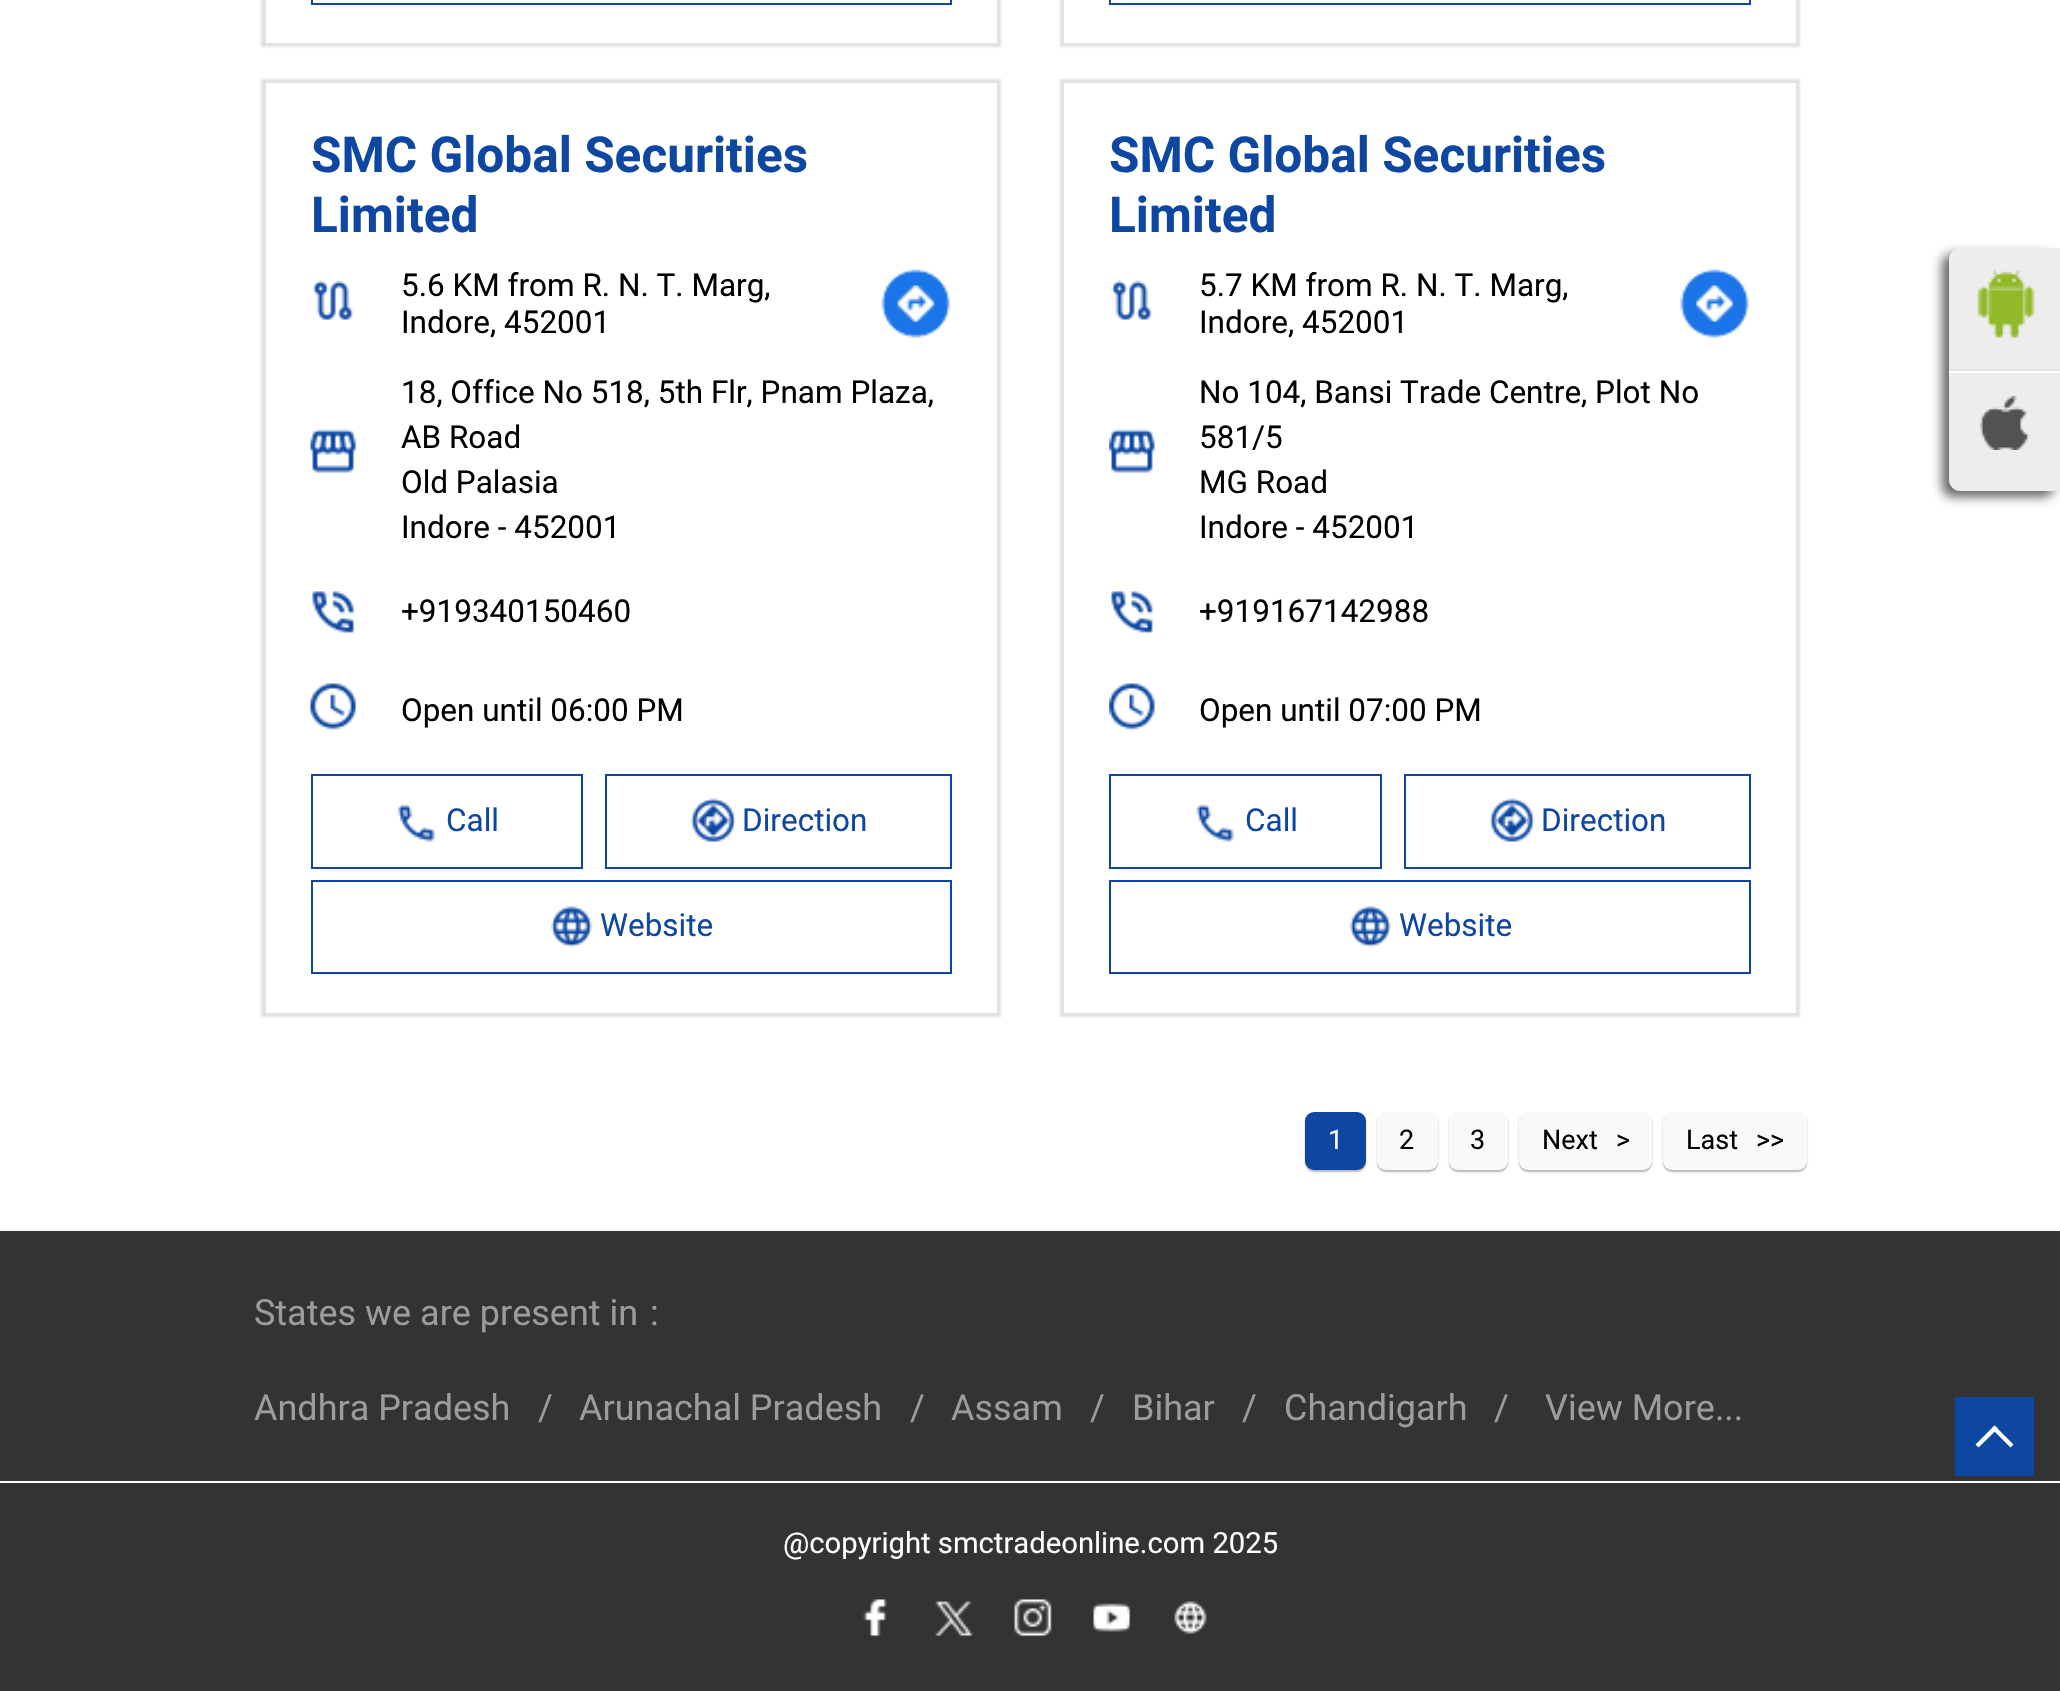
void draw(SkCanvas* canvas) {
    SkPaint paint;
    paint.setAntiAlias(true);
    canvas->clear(0xFFFFFFFF);
    paint.setColor(0xFFE2E2E2);
    paint.setMaskFilter(SkMaskFilter::MakeBlur(kNormal_SkBlurStyle, 1));
    canvas->drawRect(SkRect::MakeXYWH(261, -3, 740, 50), paint);
    paint.setMaskFilter(nullptr);
    paint.setColor(0xFFFFFFFF);
    canvas->drawRect(SkRect::MakeXYWH(266, 0, 731, 43), paint);
    paint.setStyle(SkPaint::kStroke_Style);
    paint.setStrokeWidth(2);
    paint.setColor(0xFF0D47A1);
    canvas->drawRect(SkRect::MakeXYWH(312, -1, 639, 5), paint);
    paint.setStyle(SkPaint::kFill_Style);
    paint.setColor(0xFFE2E2E2);
    paint.setMaskFilter(SkMaskFilter::MakeBlur(kNormal_SkBlurStyle, 1));
    canvas->drawRect(SkRect::MakeXYWH(1060, -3, 740, 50), paint);
    paint.setMaskFilter(nullptr);
    paint.setColor(0xFFFFFFFF);
    canvas->drawRect(SkRect::MakeXYWH(1064, 0, 732, 43), paint);
    paint.setStyle(SkPaint::kStroke_Style);
    paint.setColor(0xFF0D47A1);
    canvas->drawRect(SkRect::MakeXYWH(1110, -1, 640, 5), paint);
    paint.setStyle(SkPaint::kFill_Style);
    paint.setColor(0xFFE2E2E2);
    paint.setMaskFilter(SkMaskFilter::MakeBlur(kNormal_SkBlurStyle, 1));
    canvas->drawRect(SkRect::MakeXYWH(261, 79, 740, 938), paint);
    paint.setMaskFilter(nullptr);
    paint.setColor(0xFFFFFFFF);
    canvas->drawRect(SkRect::MakeXYWH(266, 83, 731, 930), paint);
    SkFont font1(fontMgr->matchFamilyStyle("Roboto", SkFontStyle::Bold()), 49.5f);
    font1.setSubpixel(true);
    paint.setColor(0xFF0D47A1);
    canvas->drawString("SMC Global Securities", 311, 172, font1, paint);
    canvas->drawString("Limited", 311, 232, font1, paint);
    canvas->drawImageRect(SkImages::DeferredFromEncodedData(SkData::MakeFromFileName("img1.png")), SkRect::MakeXYWH(312, 280, 42, 40), SkSamplingOptions());
    SkFont font2(fontMgr->matchFamilyStyle("Roboto", SkFontStyle::Normal()), 31.5f);
    font2.setSubpixel(true);
    paint.setColor(0xFF000000);
    canvas->drawString("5.6 KM from R. N. T. Marg,", 401, 296, font2, paint);
    canvas->drawString("Indore, 452001", 401, 333, font2, paint);
    canvas->drawImageRect(SkImages::DeferredFromEncodedData(SkData::MakeFromFileName("img2.png")), SkRect::MakeXYWH(881, 269, 70, 69), SkSamplingOptions());
    canvas->drawImageRect(SkImages::DeferredFromEncodedData(SkData::MakeFromFileName("img3.png")), SkRect::MakeXYWH(310, 429, 47, 44), SkSamplingOptions());
    canvas->drawString("18, Office No 518, 5th Flr, Pnam Plaza,", 401, 403, font2, paint);
    canvas->drawString("AB Road", 401, 448, font2, paint);
    canvas->drawString("Old Palasia", 401, 493, font2, paint);
    canvas->drawString("Indore - 452001", 401, 538, font2, paint);
    canvas->drawImageRect(SkImages::DeferredFromEncodedData(SkData::MakeFromFileName("img4.png")), SkRect::MakeXYWH(312, 591, 42, 43), SkSamplingOptions());
    canvas->drawString("+919340150460", 401, 622, font2, paint);
    canvas->drawImageRect(SkImages::DeferredFromEncodedData(SkData::MakeFromFileName("img5.png")), SkRect::MakeXYWH(310, 683, 47, 47), SkSamplingOptions());
    canvas->drawString("Open until 06:00 PM", 401, 721, font2, paint);
    paint.setStyle(SkPaint::kStroke_Style);
    paint.setColor(0xFF0D47A1);
    canvas->drawRect(SkRect::MakeXYWH(312, 775, 270, 93), paint);
    canvas->drawImageRect(SkImages::DeferredFromEncodedData(SkData::MakeFromFileName("img6.png")), SkRect::MakeXYWH(397, 804, 38, 38), SkSamplingOptions());
    paint.setStyle(SkPaint::kFill_Style);
    canvas->drawString("Call", 446, 831, font2, paint);
    paint.setStyle(SkPaint::kStroke_Style);
    canvas->drawRect(SkRect::MakeXYWH(606, 775, 345, 93), paint);
    canvas->drawImageRect(SkImages::DeferredFromEncodedData(SkData::MakeFromFileName("img7.png")), SkRect::MakeXYWH(690, 798, 46, 44), SkSamplingOptions());
    paint.setStyle(SkPaint::kFill_Style);
    canvas->drawString("Direction", 742, 831, font2, paint);
    paint.setStyle(SkPaint::kStroke_Style);
    canvas->drawRect(SkRect::MakeXYWH(312, 881, 639, 92), paint);
    canvas->drawImageRect(SkImages::DeferredFromEncodedData(SkData::MakeFromFileName("img8.png")), SkRect::MakeXYWH(550, 906, 43, 42), SkSamplingOptions());
    paint.setStyle(SkPaint::kFill_Style);
    canvas->drawString("Website", 600, 936, font2, paint);
    paint.setColor(0xFFE2E2E2);
    paint.setMaskFilter(SkMaskFilter::MakeBlur(kNormal_SkBlurStyle, 1));
    canvas->drawRect(SkRect::MakeXYWH(1060, 79, 740, 938), paint);
    paint.setMaskFilter(nullptr);
    paint.setColor(0xFFFFFFFF);
    canvas->drawRect(SkRect::MakeXYWH(1064, 83, 732, 930), paint);
    paint.setColor(0xFF0D47A1);
    canvas->drawString("SMC Global Securities", 1109, 172, font1, paint);
    canvas->drawString("Limited", 1109, 232, font1, paint);
    canvas->drawImageRect(SkImages::DeferredFromEncodedData(SkData::MakeFromFileName("img9.png")), SkRect::MakeXYWH(1111, 280, 42, 40), SkSamplingOptions());
    paint.setColor(0xFF000000);
    canvas->drawString("5.7 KM from R. N. T. Marg,", 1199, 296, font2, paint);
    canvas->drawString("Indore, 452001", 1199, 333, font2, paint);
    canvas->drawImageRect(SkImages::DeferredFromEncodedData(SkData::MakeFromFileName("img10.png")), SkRect::MakeXYWH(1680, 269, 69, 69), SkSamplingOptions());
    canvas->drawImageRect(SkImages::DeferredFromEncodedData(SkData::MakeFromFileName("img11.png")), SkRect::MakeXYWH(1109, 429, 46, 44), SkSamplingOptions());
    canvas->drawString("No 104, Bansi Trade Centre, Plot No", 1199, 403, font2, paint);
    canvas->drawString("581/5", 1199, 448, font2, paint);
    canvas->drawString("MG Road", 1199, 493, font2, paint);
    canvas->drawString("Indore - 452001", 1199, 538, font2, paint);
    canvas->drawImageRect(SkImages::DeferredFromEncodedData(SkData::MakeFromFileName("img12.png")), SkRect::MakeXYWH(1111, 591, 42, 43), SkSamplingOptions());
    canvas->drawString("+919167142988", 1199, 622, font2, paint);
    canvas->drawImageRect(SkImages::DeferredFromEncodedData(SkData::MakeFromFileName("img13.png")), SkRect::MakeXYWH(1109, 683, 46, 47), SkSamplingOptions());
    canvas->drawString("Open until 07:00 PM", 1199, 721, font2, paint);
    paint.setStyle(SkPaint::kStroke_Style);
    paint.setColor(0xFF0D47A1);
    canvas->drawRect(SkRect::MakeXYWH(1110, 775, 271, 93), paint);
    canvas->drawImageRect(SkImages::DeferredFromEncodedData(SkData::MakeFromFileName("img14.png")), SkRect::MakeXYWH(1196, 804, 38, 38), SkSamplingOptions());
    paint.setStyle(SkPaint::kFill_Style);
    canvas->drawString("Call", 1245, 831, font2, paint);
    paint.setStyle(SkPaint::kStroke_Style);
    canvas->drawRect(SkRect::MakeXYWH(1405, 775, 345, 93), paint);
    canvas->drawImageRect(SkImages::DeferredFromEncodedData(SkData::MakeFromFileName("img15.png")), SkRect::MakeXYWH(1489, 798, 46, 44), SkSamplingOptions());
    paint.setStyle(SkPaint::kFill_Style);
    canvas->drawString("Direction", 1541, 831, font2, paint);
    paint.setStyle(SkPaint::kStroke_Style);
    canvas->drawRect(SkRect::MakeXYWH(1110, 881, 640, 92), paint);
    canvas->drawImageRect(SkImages::DeferredFromEncodedData(SkData::MakeFromFileName("img16.png")), SkRect::MakeXYWH(1349, 906, 42, 42), SkSamplingOptions());
    paint.setStyle(SkPaint::kFill_Style);
    canvas->drawString("Website", 1399, 936, font2, paint);
    paint.setColor(0x66484545);
    paint.setMaskFilter(SkMaskFilter::MakeBlur(kNormal_SkBlurStyle, 1));
    canvas->drawRoundRect(SkRect::MakeXYWH(1305, 1114, 61, 58), 9, 9, paint);
    paint.setMaskFilter(nullptr);
    paint.setColor(0xFF0D47A1);
    canvas->drawRoundRect(SkRect::MakeXYWH(1305, 1112, 61, 58), 9, 9, paint);
    SkFont font3(fontMgr->matchFamilyStyle("Roboto", SkFontStyle::Normal()), 27);
    font3.setSubpixel(true);
    paint.setColor(0xFFFFFFFF);
    canvas->drawString("1", 1328, 1149, font3, paint);
    paint.setColor(0x66484545);
    paint.setMaskFilter(SkMaskFilter::MakeBlur(kNormal_SkBlurStyle, 1));
    canvas->drawRoundRect(SkRect::MakeXYWH(1377, 1114, 61, 58), 9, 9, paint);
    paint.setMaskFilter(nullptr);
    paint.setColor(0xFFF9F9F9);
    canvas->drawRoundRect(SkRect::MakeXYWH(1377, 1112, 61, 58), 9, 9, paint);
    paint.setColor(0xFF000000);
    canvas->drawString("2", 1399, 1149, font3, paint);
    paint.setColor(0x66484545);
    paint.setMaskFilter(SkMaskFilter::MakeBlur(kNormal_SkBlurStyle, 1));
    canvas->drawRoundRect(SkRect::MakeXYWH(1449, 1114, 59, 58), 9, 9, paint);
    paint.setMaskFilter(nullptr);
    paint.setColor(0xFFF9F9F9);
    canvas->drawRoundRect(SkRect::MakeXYWH(1449, 1112, 59, 58), 9, 9, paint);
    paint.setColor(0xFF000000);
    canvas->drawString("3", 1470, 1149, font3, paint);
    paint.setColor(0x66484545);
    paint.setMaskFilter(SkMaskFilter::MakeBlur(kNormal_SkBlurStyle, 1));
    canvas->drawRoundRect(SkRect::MakeXYWH(1519, 1114, 133, 58), 9, 9, paint);
    paint.setMaskFilter(nullptr);
    paint.setColor(0xFFF9F9F9);
    canvas->drawRoundRect(SkRect::MakeXYWH(1519, 1112, 133, 58), 9, 9, paint);
    paint.setColor(0xFF000000);
    canvas->drawString("Next", 1542, 1149, font3, paint);
    canvas->drawString(">", 1616, 1149, font3, paint);
    paint.setColor(0x66484545);
    paint.setMaskFilter(SkMaskFilter::MakeBlur(kNormal_SkBlurStyle, 1));
    canvas->drawRoundRect(SkRect::MakeXYWH(1663, 1114, 144, 58), 9, 9, paint);
    paint.setMaskFilter(nullptr);
    paint.setColor(0xFFF9F9F9);
    canvas->drawRoundRect(SkRect::MakeXYWH(1663, 1112, 144, 58), 9, 9, paint);
    paint.setColor(0xFF000000);
    canvas->drawString("Last", 1686, 1149, font3, paint);
    canvas->drawString(">>", 1756, 1149, font3, paint);
    paint.setColor(0xBF323232);
    paint.setMaskFilter(SkMaskFilter::MakeBlur(kNormal_SkBlurStyle, 5.5f));
    canvas->drawRoundRect(SkRect::MakeXYWH(1942, 254, 112, 243), 11, 11, paint);
    paint.setMaskFilter(nullptr);
    paint.setColor(0xFFEDEDED);
    canvas->drawPath(SkPathBuilder().moveTo(1960, 248).lineTo(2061, 248).lineTo(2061, 491).lineTo(1960, 491).cubicTo(1954, 491, 1949, 486, 1949, 480).lineTo(1949, 259).cubicTo(1949, 253, 1954, 248, 1960, 248).close().detach(), paint);
    paint.setColor(0xFFE3E3E3);
    canvas->drawRect(SkRect::MakeXYWH(1949, 369, 111, 2), paint);
    canvas->drawImageRect(SkImages::DeferredFromEncodedData(SkData::MakeFromFileName("img17.png")), SkRect::MakeXYWH(1977, 270, 58, 68), SkSamplingOptions());
    paint.setColor(0xFFFFFFFF);
    canvas->drawRect(SkRect::MakeXYWH(1949, 371, 111, 2), paint);
    canvas->drawImageRect(SkImages::DeferredFromEncodedData(SkData::MakeFromFileName("img18.png")), SkRect::MakeXYWH(1980, 396, 50, 54), SkSamplingOptions());
    paint.setColor(0xFF333333);
    canvas->drawRect(SkRect::MakeXYWH(0, 1231, 2060, 460), paint);
    paint.setColor(0xFFF7F9FC);
    canvas->drawRect(SkRect::MakeXYWH(0, 1229, 2060, 2), paint);
    paint.setColor(0xFFFFFFFF);
    canvas->drawRect(SkRect::MakeXYWH(0, 1481, 2060, 2), paint);
    SkFont font4(fontMgr->matchFamilyStyle("Roboto", SkFontStyle::Normal()), 36);
    font4.setSubpixel(true);
    paint.setColor(0xFF9C9C9C);
    canvas->drawString("States we are present in", 254, 1325, font4, paint);
    canvas->drawString(":", 650, 1325, font4, paint);
    canvas->drawString("Andhra Pradesh", 254, 1420, font4, paint);
    canvas->drawString("/", 538, 1420, font4, paint);
    canvas->drawString("Arunachal Pradesh", 579, 1420, font4, paint);
    canvas->drawString("/", 910, 1420, font4, paint);
    canvas->drawString("Assam", 951, 1420, font4, paint);
    canvas->drawString("/", 1090, 1420, font4, paint);
    canvas->drawString("Bihar", 1132, 1420, font4, paint);
    canvas->drawString("/", 1242, 1420, font4, paint);
    canvas->drawString("Chandigarh", 1284, 1420, font4, paint);
    canvas->drawString("/", 1494, 1420, font4, paint);
    canvas->drawString("View More...", 1545, 1420, font4, paint);
    SkFont font5(fontMgr->matchFamilyStyle("Roboto", SkFontStyle::Normal()), 29.25f);
    font5.setSubpixel(true);
    paint.setColor(0xFFFFFFFF);
    canvas->drawString("@copyright smctradeonline.com 2025", 783, 1553, font5, paint);
    canvas->drawImageRect(SkImages::DeferredFromEncodedData(SkData::MakeFromFileName("img19.png")), SkRect::MakeXYWH(863, 1599, 24, 38), SkSamplingOptions());
    canvas->drawImageRect(SkImages::DeferredFromEncodedData(SkData::MakeFromFileName("img20.png")), SkRect::MakeXYWH(935, 1601, 38, 36), SkSamplingOptions());
    canvas->drawImageRect(SkImages::DeferredFromEncodedData(SkData::MakeFromFileName("img21.png")), SkRect::MakeXYWH(1014, 1599, 38, 38), SkSamplingOptions());
    canvas->drawImageRect(SkImages::DeferredFromEncodedData(SkData::MakeFromFileName("img22.png")), SkRect::MakeXYWH(1093, 1603, 38, 29), SkSamplingOptions());
    canvas->drawImageRect(SkImages::DeferredFromEncodedData(SkData::MakeFromFileName("img23.png")), SkRect::MakeXYWH(1174, 1601, 33, 33), SkSamplingOptions());
    paint.setColor(0xFF0D47A1);
    canvas->drawRect(SkRect::MakeXYWH(1955, 1397, 79, 79), paint);
    paint.setColor(0xFFFFFFFF);
    canvas->drawPath(SkPathBuilder().moveTo(1978.5f, 1447.5f).lineTo(1975.5f, 1444.5f).lineTo(1994.5f, 1425.5f).lineTo(1998, 1428.5f).close().detach(), paint);
    canvas->drawPath(SkPathBuilder().moveTo(2010.5f, 1447.5f).lineTo(1991.5f, 1428.5f).lineTo(1994.5f, 1425.5f).lineTo(2013.5f, 1444.5f).close().detach(), paint);
}
